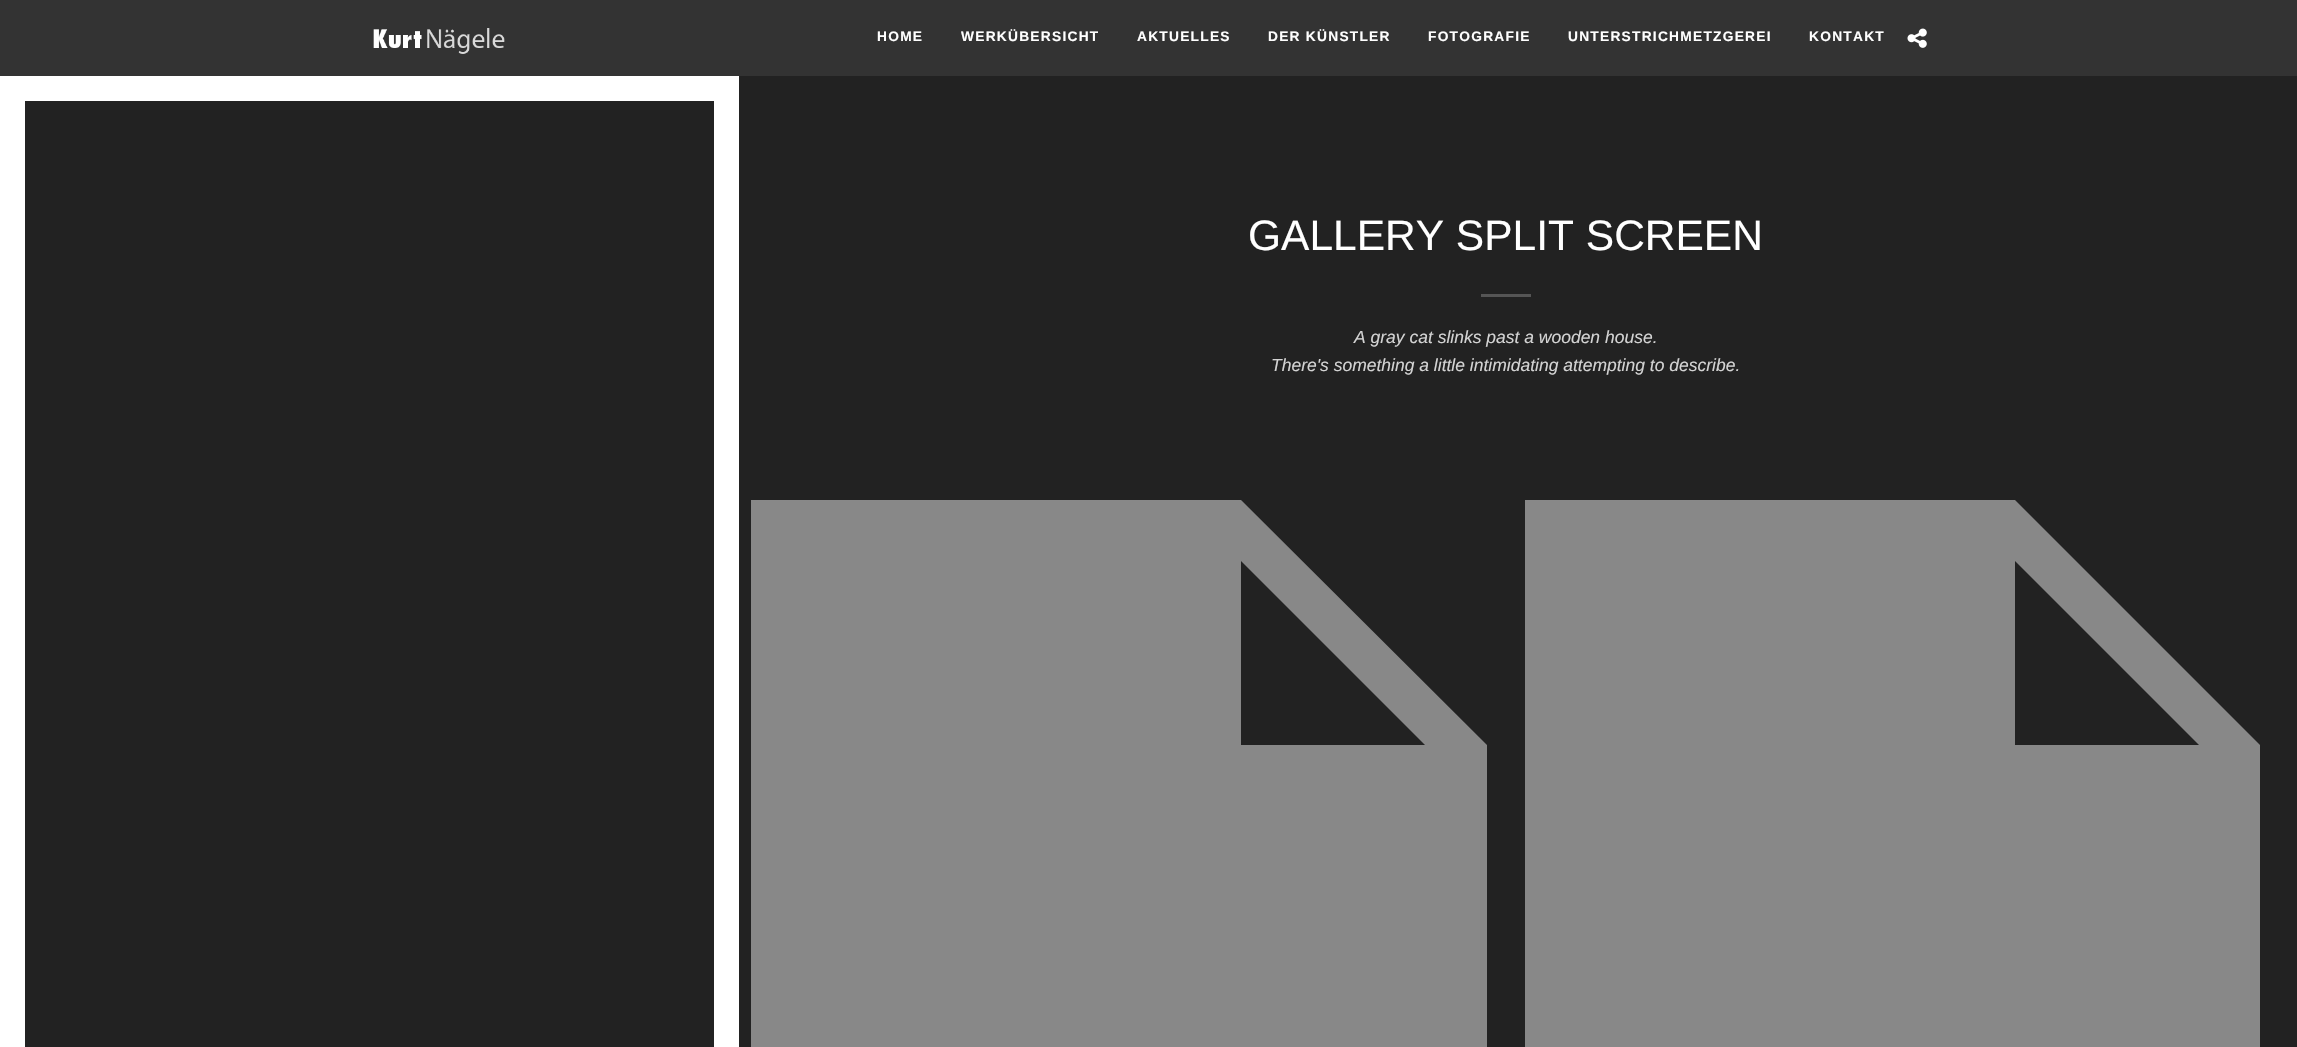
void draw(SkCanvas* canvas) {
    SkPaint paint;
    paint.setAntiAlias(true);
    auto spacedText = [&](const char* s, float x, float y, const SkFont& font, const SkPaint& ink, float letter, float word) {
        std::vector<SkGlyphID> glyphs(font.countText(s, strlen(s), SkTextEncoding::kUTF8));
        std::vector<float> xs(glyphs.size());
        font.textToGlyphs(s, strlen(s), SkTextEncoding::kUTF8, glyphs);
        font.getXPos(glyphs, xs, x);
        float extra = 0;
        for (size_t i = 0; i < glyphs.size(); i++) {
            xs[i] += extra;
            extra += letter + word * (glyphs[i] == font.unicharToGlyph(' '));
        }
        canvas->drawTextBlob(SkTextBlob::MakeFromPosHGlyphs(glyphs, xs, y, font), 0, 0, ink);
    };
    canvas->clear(0xFF222222);
    paint.setColor(0xFF333333);
    canvas->drawRect(SkRect::MakeXYWH(0, 0, 2297, 76), paint);
    canvas->drawImageRect(SkImages::DeferredFromEncodedData(SkData::MakeFromFileName("img1.png")), SkRect::MakeXYWH(373, 28, 132, 26), SkSamplingOptions());
    SkFont font1(fontMgr->matchFamilyStyle("Liberation Sans", SkFontStyle::Bold()), 13.75f);
    font1.setSubpixel(true);
    paint.setColor(0xFFFFFFFF);
    spacedText("HOME", 877, 41, font1, paint, 1.25f, 0);
    spacedText("WERKÜBERSICHT", 961, 41, font1, paint, 1.25f, 0);
    spacedText("AKTUELLES", 1137, 41, font1, paint, 1.25f, 0);
    spacedText("DER KÜNSTLER", 1268, 41, font1, paint, 1.25f, 0);
    spacedText("FOTOGRAFIE", 1428, 41, font1, paint, 1.25f, 0);
    spacedText("UNTERSTRICHMETZGEREI", 1568, 41, font1, paint, 1.25f, 0);
    spacedText("KONTAKT", 1809, 41, font1, paint, 1.25f, 0);
    canvas->drawImageRect(SkImages::DeferredFromEncodedData(SkData::MakeFromFileName("img2.png")), SkRect::MakeXYWH(1907, 28, 20, 20), SkSamplingOptions());
    paint.setStyle(SkPaint::kStroke_Style);
    paint.setStrokeWidth(25);
    canvas->drawRect(SkRect::MakeXYWH(12.5f, 88.5f, 714, 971), paint);
    SkFont font2(fontMgr->matchFamilyStyle("Liberation Sans", SkFontStyle::Normal()), 42.5f);
    font2.setSubpixel(true);
    paint.setStyle(SkPaint::kFill_Style);
    canvas->drawString("GALLERY SPLIT SCREEN", 1248, 250, font2, paint);
    paint.setColor(0xFF555555);
    canvas->drawRect(SkRect::MakeXYWH(1481, 294, 50, 3), paint);
    SkFont font3(fontMgr->matchFamilyStyle("Liberation Sans", SkFontStyle::Italic()), 17.5f);
    font3.setSubpixel(true);
    paint.setColor(0xFFD3D3D3);
    canvas->drawString("A gray cat slinks past a wooden house.", 1354, 343, font3, paint);
    canvas->drawString("There's something a little intimidating attempting to describe.", 1271, 371, font3, paint);
    paint.setColor(0xFF888888);
    canvas->drawPath(SkPathBuilder().moveTo(1241, 500).lineTo(751, 500).lineTo(751, 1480).lineTo(1487, 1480).lineTo(1487, 745).close().moveTo(1241, 745).lineTo(1241, 561).lineTo(1425, 745).close().detach(), paint);
    canvas->drawPath(SkPathBuilder().moveTo(2015, 500).lineTo(1525, 500).lineTo(1525, 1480).lineTo(2260, 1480).lineTo(2260, 745).close().moveTo(2015, 745).lineTo(2015, 561).lineTo(2199, 745).close().detach(), paint);
}
